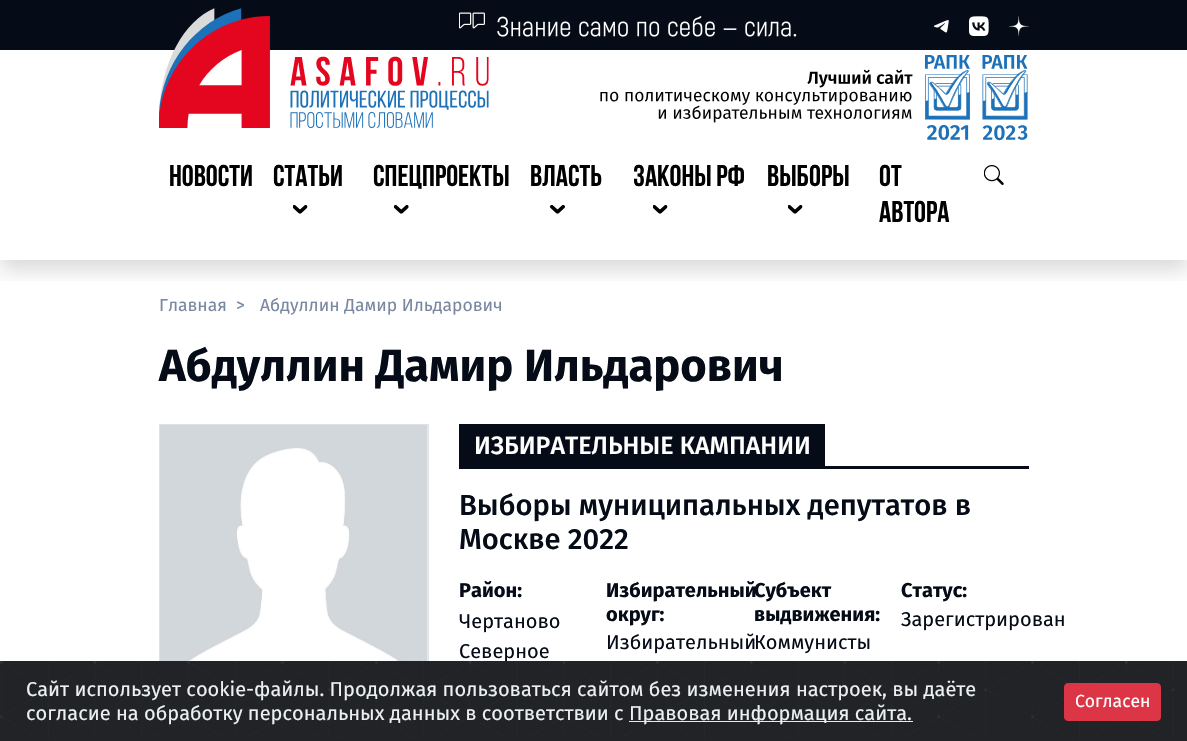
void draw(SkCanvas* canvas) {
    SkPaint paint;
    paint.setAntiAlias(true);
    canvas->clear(0xFFFFFFFF);
    canvas->save();
    canvas->clipRect(SkRect::MakeXYWH(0, 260, 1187, 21));
    paint.setColor(0x26000000);
    paint.setMaskFilter(SkMaskFilter::MakeBlur(kNormal_SkBlurStyle, 10));
    canvas->drawRect(SkRect::MakeXYWH(0, 10, 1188, 260), paint);
    paint.setMaskFilter(nullptr);
    canvas->restore();
    paint.setColor(0xFF060C17);
    canvas->drawRect(SkRect::MakeXYWH(0, 0, 1187, 50), paint);
    canvas->drawImageRect(SkImages::DeferredFromEncodedData(SkData::MakeFromFileName("img1.png")), SkRect::MakeXYWH(459, 12, 338, 25), SkSamplingOptions());
    canvas->drawImageRect(SkImages::DeferredFromEncodedData(SkData::MakeFromFileName("img2.png")), SkRect::MakeXYWH(934, 20, 15, 13), SkSamplingOptions());
    canvas->drawImageRect(SkImages::DeferredFromEncodedData(SkData::MakeFromFileName("img3.png")), SkRect::MakeXYWH(969, 16, 20, 20), SkSamplingOptions());
    canvas->drawImageRect(SkImages::DeferredFromEncodedData(SkData::MakeFromFileName("img4.png")), SkRect::MakeXYWH(1009, 16, 20, 20), SkSamplingOptions());
    canvas->drawImageRect(SkImages::DeferredFromEncodedData(SkData::MakeFromFileName("img5.png")), SkRect::MakeXYWH(159, 8, 330, 120), SkSamplingOptions());
    canvas->drawImageRect(SkImages::DeferredFromEncodedData(SkData::MakeFromFileName("img6.png")), SkRect::MakeXYWH(600, 55, 428, 86), SkSamplingOptions());
    SkFont font1(fontMgr->matchFamilyStyle("Bebas Neue", SkFontStyle::Bold()), 30);
    font1.setSubpixel(true);
    paint.setColor(0xFF000000);
    canvas->drawString("НОВОСТИ", 169, 186, font1, paint);
    canvas->drawString("СТАТЬИ", 273, 186, font1, paint);
    canvas->drawImageRect(SkImages::DeferredFromEncodedData(SkData::MakeFromFileName("img7.png")), SkRect::MakeXYWH(293, 205, 15, 9), SkSamplingOptions());
    canvas->drawString("СПЕЦПРОЕКТЫ", 373, 186, font1, paint);
    canvas->drawImageRect(SkImages::DeferredFromEncodedData(SkData::MakeFromFileName("img8.png")), SkRect::MakeXYWH(394, 205, 15, 9), SkSamplingOptions());
    canvas->drawString("ВЛАСТЬ", 530, 186, font1, paint);
    canvas->drawImageRect(SkImages::DeferredFromEncodedData(SkData::MakeFromFileName("img9.png")), SkRect::MakeXYWH(550, 205, 15, 9), SkSamplingOptions());
    canvas->drawString("ЗАКОНЫ РФ", 633, 186, font1, paint);
    canvas->drawImageRect(SkImages::DeferredFromEncodedData(SkData::MakeFromFileName("img7.png")), SkRect::MakeXYWH(653, 205, 15, 9), SkSamplingOptions());
    canvas->drawString("ВЫБОРЫ", 767, 186, font1, paint);
    canvas->drawImageRect(SkImages::DeferredFromEncodedData(SkData::MakeFromFileName("img7.png")), SkRect::MakeXYWH(788, 205, 15, 9), SkSamplingOptions());
    canvas->drawString("ОТ", 879, 186, font1, paint);
    canvas->drawString("АВТОРА", 879, 222, font1, paint);
    canvas->drawImageRect(SkImages::DeferredFromEncodedData(SkData::MakeFromFileName("img10.png")), SkRect::MakeXYWH(984, 165, 20, 20), SkSamplingOptions());
    SkFont font2(fontMgr->matchFamilyStyle("Fira Sans", SkFontStyle::Normal()), 17.5f);
    font2.setSubpixel(true);
    paint.setColor(0xFF7987A1);
    canvas->drawString("Главная", 159, 311, font2, paint);
    canvas->drawString(">", 236, 311, font2, paint);
    canvas->drawString("Абдуллин Дамир Ильдарович", 260, 311, font2, paint);
    SkFont font3(fontMgr->matchFamilyStyle("Fira Sans", SkFontStyle::Bold()), 45.25f);
    font3.setSubpixel(true);
    paint.setColor(0xFF060C17);
    canvas->drawString("Абдуллин Дамир Ильдарович", 159, 381, font3, paint);
    paint.setStyle(SkPaint::kStroke_Style);
    paint.setStrokeWidth(1);
    paint.setColor(0xFFDEE2E6);
    canvas->drawRect(SkRect::MakeXYWH(159.5f, 424.5f, 269, 269), paint);
    canvas->drawImageRect(SkImages::DeferredFromEncodedData(SkData::MakeFromFileName("img11.png")), SkRect::MakeXYWH(160, 425, 268, 236), SkSamplingOptions());
    paint.setStyle(SkPaint::kFill_Style);
    paint.setColor(0xFF060C17);
    canvas->drawRect(SkRect::MakeXYWH(459, 466, 570, 3), paint);
    canvas->drawRect(SkRect::MakeXYWH(459, 424, 366, 42), paint);
    SkFont font4(fontMgr->matchFamilyStyle("Fira Sans", SkFontStyle(500, SkFontStyle::kNormal_Width, SkFontStyle::kUpright_Slant)), 25);
    font4.setSubpixel(true);
    paint.setColor(0xFFFFFFFF);
    canvas->drawString("ИЗБИРАТЕЛЬНЫЕ КАМПАНИИ", 474, 454, font4, paint);
    SkFont font5(fontMgr->matchFamilyStyle("Fira Sans", SkFontStyle(500, SkFontStyle::kNormal_Width, SkFontStyle::kUpright_Slant)), 29.1f);
    font5.setSubpixel(true);
    paint.setColor(0xFF060C17);
    canvas->drawString("Выборы муниципальных депутатов в", 459, 515, font5, paint);
    canvas->drawString("Москве 2022", 459, 549, font5, paint);
    SkFont font6(fontMgr->matchFamilyStyle("Fira Sans", SkFontStyle::Bold()), 20);
    font6.setSubpixel(true);
    canvas->drawString("Район:", 459, 597, font6, paint);
    SkFont font7(fontMgr->matchFamilyStyle("Fira Sans", SkFontStyle::Normal()), 20);
    font7.setSubpixel(true);
    canvas->drawString("Чертаново", 459, 628, font7, paint);
    canvas->drawString("Северное", 459, 658, font7, paint);
    canvas->drawString("Избирательный", 606, 597, font6, paint);
    canvas->drawString("округ:", 606, 621, font6, paint);
    canvas->drawString("Избирательный", 606, 649, font7, paint);
    canvas->drawString("Субъект", 754, 597, font6, paint);
    canvas->drawString("выдвижения:", 754, 621, font6, paint);
    canvas->drawString("Коммунисты", 754, 649, font7, paint);
    canvas->drawString("Статус:", 901, 597, font6, paint);
    canvas->drawString("Зарегистрирован", 901, 626, font7, paint);
    paint.setColor(0xFF212327);
    canvas->drawRect(SkRect::MakeXYWH(0, 661, 1187, 80), paint);
    canvas->drawImageRect(SkImages::DeferredFromEncodedData(SkData::MakeFromFileName("img12.png")), SkRect::MakeXYWH(0, 661, 1181, 79), SkSamplingOptions());
    paint.setColor(0xFFECF0F1);
    canvas->drawString("Сайт использует cookie-файлы. Продолжая пользоваться сайтом без изменения настроек, вы даёте", 26, 696, font7, paint);
    canvas->drawString("согласие на обработку персональных данных в соответствии с", 26, 720, font7, paint);
    paint.setColor(0xFFE9ECEF);
    canvas->drawRect(SkRect::MakeXYWH(629, 721, 284, 1), paint);
    paint.setColor(0xFFECF0F1);
    canvas->drawString("Правовая информация сайта.", 629, 720, font7, paint);
    paint.setColor(0xFFDC3545);
    canvas->drawRoundRect(SkRect::MakeXYWH(1064.5f, 683.5f, 96, 37), 3.5f, 3.5f, paint);
    paint.setStyle(SkPaint::kStroke_Style);
    canvas->drawRoundRect(SkRect::MakeXYWH(1064.5f, 683.5f, 96, 37), 3.5f, 3.5f, paint);
    paint.setStyle(SkPaint::kFill_Style);
    paint.setColor(0xFFFFFFFF);
    canvas->drawString("Согласен", 1075, 707, font2, paint);
}
